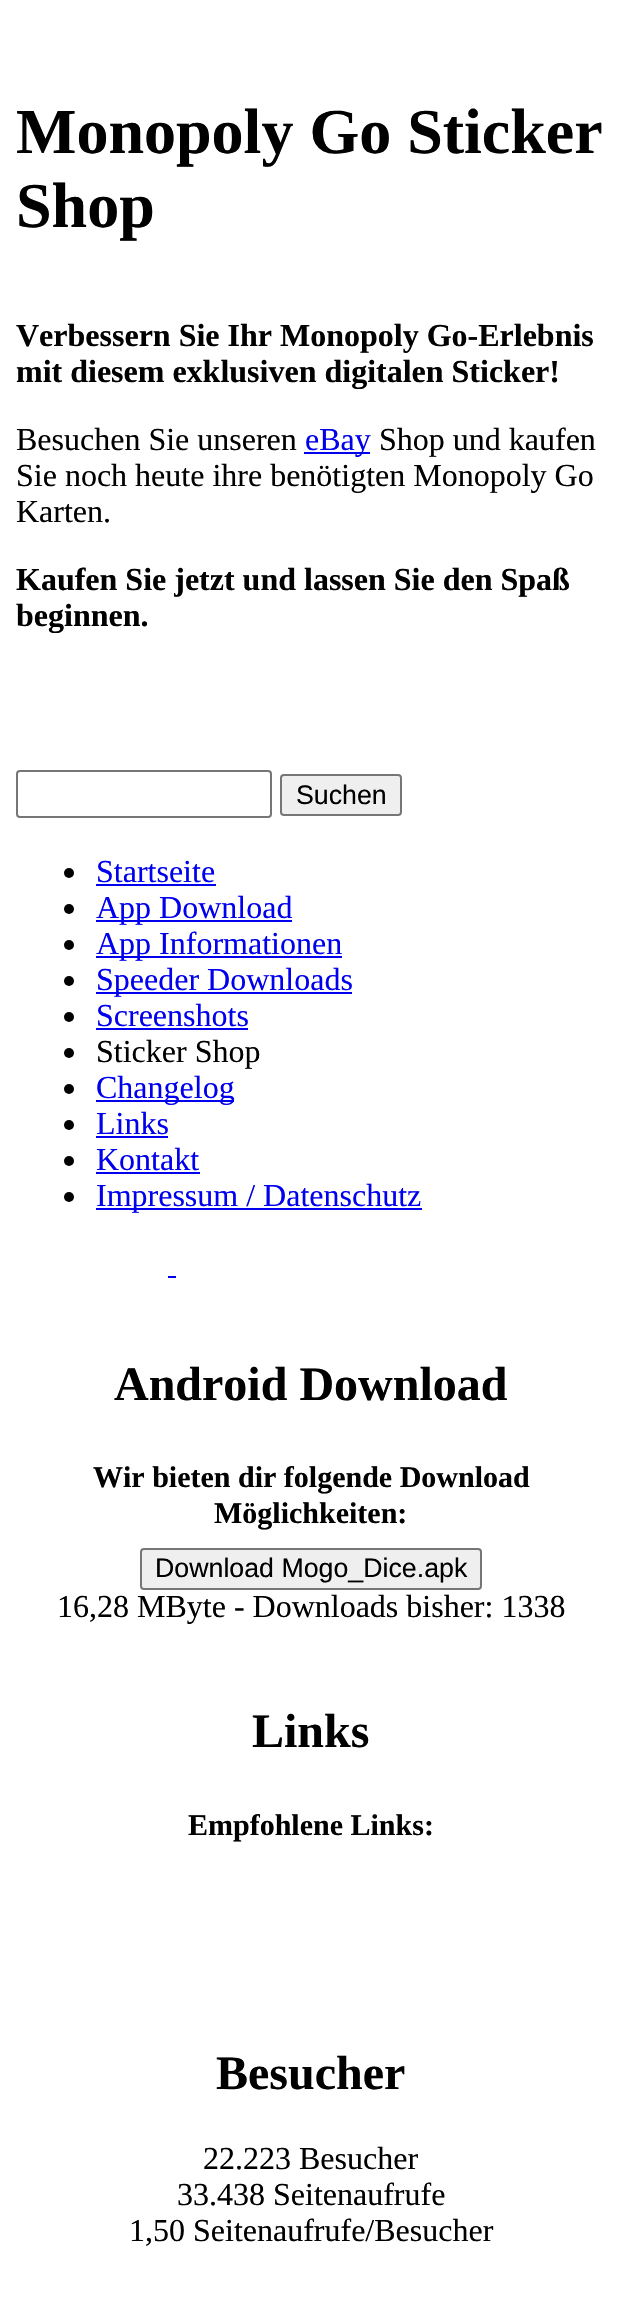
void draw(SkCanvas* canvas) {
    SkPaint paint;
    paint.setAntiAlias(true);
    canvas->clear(0xFFFFFFFF);
    SkFont font1(fontMgr->matchFamilyStyle("Liberation Serif", SkFontStyle::Bold()), 64);
    font1.setSubpixel(true);
    paint.setColor(0xFF000000);
    canvas->drawString("Monopoly Go Sticker", 16, 153, font1, paint);
    canvas->drawString("Shop", 16, 227, font1, paint);
    SkFont font2(fontMgr->matchFamilyStyle("Liberation Serif", SkFontStyle::Bold()), 32);
    font2.setSubpixel(true);
    canvas->drawString("Verbessern Sie Ihr Monopoly Go-Erlebnis", 16, 346, font2, paint);
    canvas->drawString("mit diesem exklusiven digitalen Sticker!", 16, 382, font2, paint);
    SkFont font3(fontMgr->matchFamilyStyle("Liberation Serif", SkFontStyle::Normal()), 32);
    font3.setSubpixel(true);
    canvas->drawString("Besuchen Sie unseren", 16, 450, font3, paint);
    paint.setColor(0xFF0000EE);
    canvas->drawRect(SkRect::MakeXYWH(304, 452, 66, 2), paint);
    canvas->drawString("eBay", 305, 450, font3, paint);
    paint.setColor(0xFF000000);
    canvas->drawString("Shop und kaufen", 379, 450, font3, paint);
    canvas->drawString("Sie noch heute ihre benötigten Monopoly Go", 16, 486, font3, paint);
    canvas->drawString("Karten.", 16, 522, font3, paint);
    canvas->drawString("Kaufen Sie jetzt und lassen Sie den Spaß", 16, 590, font2, paint);
    canvas->drawString("beginnen.", 16, 626, font2, paint);
    paint.setStyle(SkPaint::kStroke_Style);
    paint.setStrokeWidth(2);
    paint.setColor(0xFF767676);
    canvas->drawRoundRect(SkRect::MakeXYWH(17, 771, 254, 46), 3, 3, paint);
    paint.setStyle(SkPaint::kFill_Style);
    paint.setColor(0xFFEFEFEF);
    canvas->drawRoundRect(SkRect::MakeXYWH(281, 775, 120, 40), 3, 3, paint);
    paint.setStyle(SkPaint::kStroke_Style);
    paint.setColor(0xFF767676);
    canvas->drawRoundRect(SkRect::MakeXYWH(281, 775, 120, 40), 3, 3, paint);
    SkFont font4(fontMgr->matchFamilyStyle("Liberation Sans", SkFontStyle::Normal()), 26.75f);
    font4.setSubpixel(true);
    paint.setStyle(SkPaint::kFill_Style);
    paint.setColor(0xFF000000);
    canvas->drawString("Suchen", 296, 804, font4, paint);
    canvas->drawCircle(69, 873, 5, paint);
    paint.setColor(0xFF0000EE);
    canvas->drawString("Startseite", 96, 882, font3, paint);
    canvas->drawRect(SkRect::MakeXYWH(96, 884, 120, 2), paint);
    paint.setColor(0xFF000000);
    canvas->drawCircle(69, 909, 5, paint);
    paint.setColor(0xFF0000EE);
    canvas->drawRect(SkRect::MakeXYWH(96, 920, 196, 2), paint);
    canvas->drawString("App Download", 96, 918, font3, paint);
    paint.setColor(0xFF000000);
    canvas->drawCircle(69, 945, 5, paint);
    paint.setColor(0xFF0000EE);
    canvas->drawRect(SkRect::MakeXYWH(96, 956, 246, 2), paint);
    canvas->drawString("App Informationen", 96, 954, font3, paint);
    paint.setColor(0xFF000000);
    canvas->drawCircle(69, 981, 5, paint);
    paint.setColor(0xFF0000EE);
    canvas->drawRect(SkRect::MakeXYWH(96, 992, 256, 2), paint);
    canvas->drawString("Speeder Downloads", 96, 990, font3, paint);
    paint.setColor(0xFF000000);
    canvas->drawCircle(69, 1017, 5, paint);
    paint.setColor(0xFF0000EE);
    canvas->drawString("Screenshots", 96, 1026, font3, paint);
    canvas->drawRect(SkRect::MakeXYWH(96, 1028, 152, 2), paint);
    paint.setColor(0xFF000000);
    canvas->drawCircle(69, 1053, 5, paint);
    canvas->drawString("Sticker Shop", 96, 1062, font3, paint);
    canvas->drawCircle(69, 1089, 5, paint);
    paint.setColor(0xFF0000EE);
    canvas->drawRect(SkRect::MakeXYWH(96, 1100, 138, 2), paint);
    canvas->drawString("Changelog", 96, 1098, font3, paint);
    paint.setColor(0xFF000000);
    canvas->drawCircle(69, 1125, 5, paint);
    paint.setColor(0xFF0000EE);
    canvas->drawString("Links", 96, 1134, font3, paint);
    canvas->drawRect(SkRect::MakeXYWH(96, 1136, 72, 2), paint);
    paint.setColor(0xFF000000);
    canvas->drawCircle(69, 1161, 5, paint);
    paint.setColor(0xFF0000EE);
    canvas->drawString("Kontakt", 96, 1170, font3, paint);
    canvas->drawRect(SkRect::MakeXYWH(96, 1172, 104, 2), paint);
    paint.setColor(0xFF000000);
    canvas->drawCircle(69, 1197, 5, paint);
    paint.setColor(0xFF0000EE);
    canvas->drawRect(SkRect::MakeXYWH(96, 1208, 326, 2), paint);
    canvas->drawString("Impressum / Datenschutz", 96, 1206, font3, paint);
    canvas->drawRect(SkRect::MakeXYWH(168, 1276, 8, 2), paint);
    SkFont font5(fontMgr->matchFamilyStyle("Liberation Serif", SkFontStyle::Bold()), 48);
    font5.setSubpixel(true);
    paint.setColor(0xFF000000);
    canvas->drawString("Android Download", 114, 1400, font5, paint);
    SkFont font6(fontMgr->matchFamilyStyle("Liberation Serif", SkFontStyle::Bold()), 30);
    font6.setSubpixel(true);
    canvas->drawString("Wir bieten dir folgende Download", 93, 1487, font6, paint);
    canvas->drawString("Möglichkeiten:", 214, 1523, font6, paint);
    paint.setColor(0xFFEFEFEF);
    canvas->drawRoundRect(SkRect::MakeXYWH(141, 1549, 340, 40), 3, 3, paint);
    paint.setStyle(SkPaint::kStroke_Style);
    paint.setColor(0xFF767676);
    canvas->drawRoundRect(SkRect::MakeXYWH(141, 1549, 340, 40), 3, 3, paint);
    paint.setStyle(SkPaint::kFill_Style);
    paint.setColor(0xFF000000);
    canvas->drawString("Download Mogo_Dice.apk", 155, 1577, font4, paint);
    canvas->drawString("16,28 MByte - Downloads bisher: 1338", 57, 1617, font3, paint);
    canvas->drawString("Links", 252, 1747, font5, paint);
    canvas->drawString("Empfohlene Links:", 188, 1835, font6, paint);
    canvas->drawString("Besucher", 216, 2089, font5, paint);
    canvas->drawString("22.223 Besucher", 203, 2169, font3, paint);
    canvas->drawString("33.438 Seitenaufrufe", 177, 2205, font3, paint);
    canvas->drawString("1,50 Seitenaufrufe/Besucher", 129, 2241, font3, paint);
}
